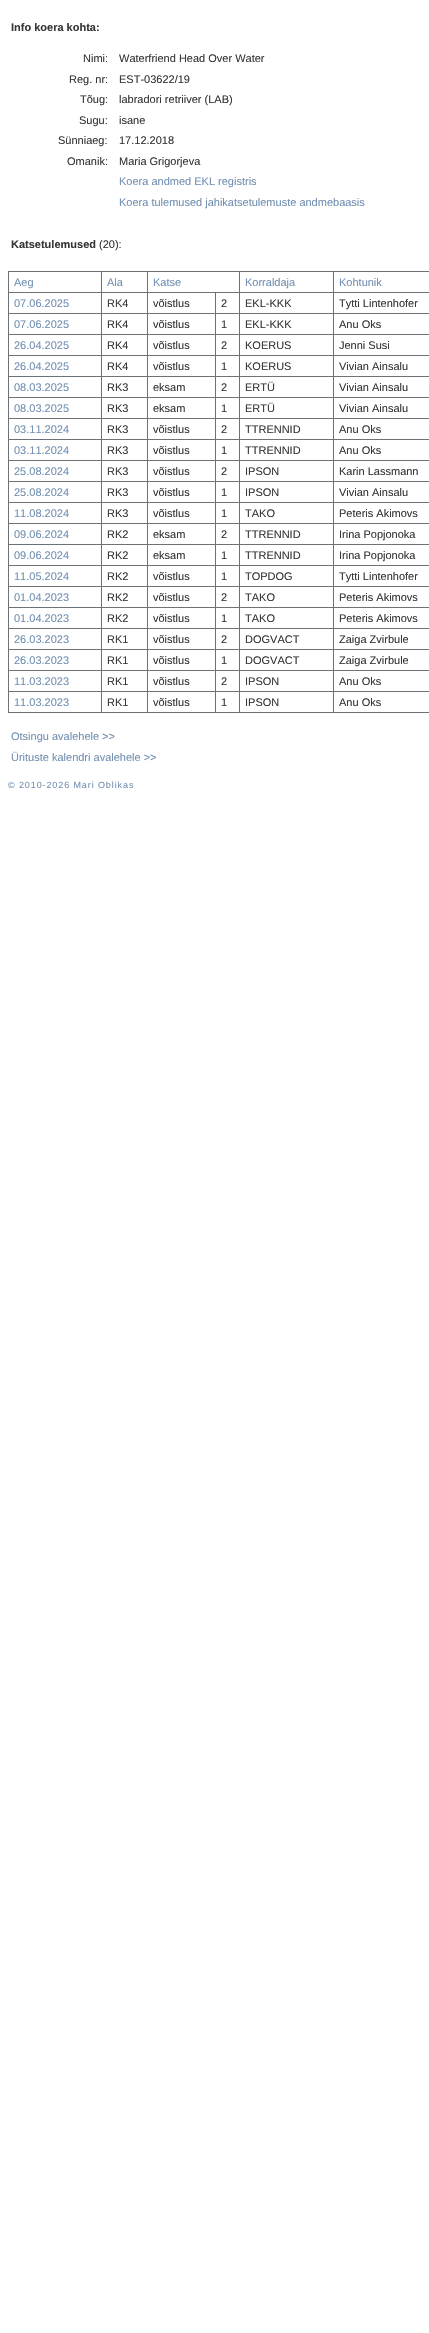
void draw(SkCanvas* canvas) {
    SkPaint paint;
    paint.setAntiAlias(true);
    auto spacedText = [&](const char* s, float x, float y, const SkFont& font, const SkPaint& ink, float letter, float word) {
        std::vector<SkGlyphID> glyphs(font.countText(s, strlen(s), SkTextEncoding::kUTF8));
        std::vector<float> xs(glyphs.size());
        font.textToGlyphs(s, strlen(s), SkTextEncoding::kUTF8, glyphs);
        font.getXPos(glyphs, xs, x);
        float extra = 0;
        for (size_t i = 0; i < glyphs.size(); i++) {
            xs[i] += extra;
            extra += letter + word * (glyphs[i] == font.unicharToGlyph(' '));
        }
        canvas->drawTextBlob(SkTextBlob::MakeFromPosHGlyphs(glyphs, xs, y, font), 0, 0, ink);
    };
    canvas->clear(0xFFFFFFFF);
    SkFont font1(fontMgr->matchFamilyStyle("Liberation Sans", SkFontStyle::Bold()), 11);
    font1.setSubpixel(true);
    paint.setColor(0xFF363636);
    canvas->drawString("Info koera kohta:", 11, 31, font1, paint);
    SkFont font2(fontMgr->matchFamilyStyle("Liberation Sans", SkFontStyle::Normal()), 11);
    font2.setSubpixel(true);
    canvas->drawString("Nimi:", 83, 62, font2, paint);
    canvas->drawString("Waterfriend Head Over Water", 119, 62, font2, paint);
    canvas->drawString("Reg. nr:", 69, 83, font2, paint);
    canvas->drawString("EST-03622/19", 119, 83, font2, paint);
    canvas->drawString("Tõug:", 80, 103, font2, paint);
    canvas->drawString("labradori retriiver (LAB)", 119, 103, font2, paint);
    canvas->drawString("Sugu:", 79, 124, font2, paint);
    canvas->drawString("isane", 119, 124, font2, paint);
    canvas->drawString("Sünniaeg:", 58, 144, font2, paint);
    canvas->drawString("17.12.2018", 119, 144, font2, paint);
    canvas->drawString("Omanik:", 67, 165, font2, paint);
    canvas->drawString("Maria Grigorjeva", 119, 165, font2, paint);
    paint.setColor(0xFF7290B2);
    canvas->drawString("Koera andmed EKL registris", 119, 185, font2, paint);
    canvas->drawString("Koera tulemused jahikatsetulemuste andmebaasis", 119, 206, font2, paint);
    paint.setColor(0xFF363636);
    canvas->drawString("Katsetulemused", 11, 248, font1, paint);
    canvas->drawString("(20):", 99, 248, font2, paint);
    paint.setColor(0xFF6D7277);
    canvas->drawRect(SkRect::MakeXYWH(333, 271, 96, 1), paint);
    canvas->drawRect(SkRect::MakeXYWH(333, 292, 96, 1), paint);
    canvas->drawRect(SkRect::MakeXYWH(333, 313, 96, 1), paint);
    canvas->drawRect(SkRect::MakeXYWH(333, 334, 96, 1), paint);
    canvas->drawRect(SkRect::MakeXYWH(333, 355, 96, 1), paint);
    canvas->drawRect(SkRect::MakeXYWH(333, 376, 96, 1), paint);
    canvas->drawRect(SkRect::MakeXYWH(333, 397, 96, 1), paint);
    canvas->drawRect(SkRect::MakeXYWH(333, 418, 96, 1), paint);
    canvas->drawRect(SkRect::MakeXYWH(333, 439, 96, 1), paint);
    canvas->drawRect(SkRect::MakeXYWH(333, 460, 96, 1), paint);
    canvas->drawRect(SkRect::MakeXYWH(333, 481, 96, 1), paint);
    canvas->drawRect(SkRect::MakeXYWH(333, 502, 96, 1), paint);
    canvas->drawRect(SkRect::MakeXYWH(333, 523, 96, 1), paint);
    canvas->drawRect(SkRect::MakeXYWH(333, 544, 96, 1), paint);
    canvas->drawRect(SkRect::MakeXYWH(333, 565, 96, 1), paint);
    canvas->drawRect(SkRect::MakeXYWH(333, 586, 96, 1), paint);
    canvas->drawRect(SkRect::MakeXYWH(333, 607, 96, 1), paint);
    canvas->drawRect(SkRect::MakeXYWH(333, 628, 96, 1), paint);
    canvas->drawRect(SkRect::MakeXYWH(333, 649, 96, 1), paint);
    canvas->drawRect(SkRect::MakeXYWH(333, 670, 96, 1), paint);
    canvas->drawRect(SkRect::MakeXYWH(333, 691, 96, 1), paint);
    canvas->drawRect(SkRect::MakeXYWH(333, 712, 96, 1), paint);
    canvas->drawRect(SkRect::MakeXYWH(333, 691, 1, 22), paint);
    canvas->drawRect(SkRect::MakeXYWH(239, 691, 95, 1), paint);
    canvas->drawRect(SkRect::MakeXYWH(333, 670, 1, 22), paint);
    canvas->drawRect(SkRect::MakeXYWH(239, 670, 95, 1), paint);
    canvas->drawRect(SkRect::MakeXYWH(333, 649, 1, 22), paint);
    canvas->drawRect(SkRect::MakeXYWH(239, 649, 95, 1), paint);
    canvas->drawRect(SkRect::MakeXYWH(333, 628, 1, 22), paint);
    canvas->drawRect(SkRect::MakeXYWH(239, 628, 95, 1), paint);
    canvas->drawRect(SkRect::MakeXYWH(333, 607, 1, 22), paint);
    canvas->drawRect(SkRect::MakeXYWH(239, 607, 95, 1), paint);
    canvas->drawRect(SkRect::MakeXYWH(333, 586, 1, 22), paint);
    canvas->drawRect(SkRect::MakeXYWH(239, 586, 95, 1), paint);
    canvas->drawRect(SkRect::MakeXYWH(333, 565, 1, 22), paint);
    canvas->drawRect(SkRect::MakeXYWH(239, 565, 95, 1), paint);
    canvas->drawRect(SkRect::MakeXYWH(333, 544, 1, 22), paint);
    canvas->drawRect(SkRect::MakeXYWH(239, 544, 95, 1), paint);
    canvas->drawRect(SkRect::MakeXYWH(333, 523, 1, 22), paint);
    canvas->drawRect(SkRect::MakeXYWH(239, 523, 95, 1), paint);
    canvas->drawRect(SkRect::MakeXYWH(333, 502, 1, 22), paint);
    canvas->drawRect(SkRect::MakeXYWH(239, 502, 95, 1), paint);
    canvas->drawRect(SkRect::MakeXYWH(333, 481, 1, 22), paint);
    canvas->drawRect(SkRect::MakeXYWH(239, 481, 95, 1), paint);
    canvas->drawRect(SkRect::MakeXYWH(333, 460, 1, 22), paint);
    canvas->drawRect(SkRect::MakeXYWH(239, 460, 95, 1), paint);
    canvas->drawRect(SkRect::MakeXYWH(333, 439, 1, 22), paint);
    canvas->drawRect(SkRect::MakeXYWH(239, 439, 95, 1), paint);
    canvas->drawRect(SkRect::MakeXYWH(333, 418, 1, 22), paint);
    canvas->drawRect(SkRect::MakeXYWH(239, 418, 95, 1), paint);
    canvas->drawRect(SkRect::MakeXYWH(333, 397, 1, 22), paint);
    canvas->drawRect(SkRect::MakeXYWH(239, 397, 95, 1), paint);
    canvas->drawRect(SkRect::MakeXYWH(333, 376, 1, 22), paint);
    canvas->drawRect(SkRect::MakeXYWH(239, 376, 95, 1), paint);
    canvas->drawRect(SkRect::MakeXYWH(333, 355, 1, 22), paint);
    canvas->drawRect(SkRect::MakeXYWH(239, 355, 95, 1), paint);
    canvas->drawRect(SkRect::MakeXYWH(333, 334, 1, 22), paint);
    canvas->drawRect(SkRect::MakeXYWH(239, 334, 95, 1), paint);
    canvas->drawRect(SkRect::MakeXYWH(333, 313, 1, 22), paint);
    canvas->drawRect(SkRect::MakeXYWH(239, 313, 95, 1), paint);
    canvas->drawRect(SkRect::MakeXYWH(333, 292, 1, 22), paint);
    canvas->drawRect(SkRect::MakeXYWH(239, 292, 95, 1), paint);
    canvas->drawRect(SkRect::MakeXYWH(333, 271, 1, 22), paint);
    canvas->drawRect(SkRect::MakeXYWH(239, 271, 95, 1), paint);
    canvas->drawRect(SkRect::MakeXYWH(239, 712, 95, 1), paint);
    canvas->drawRect(SkRect::MakeXYWH(239, 691, 1, 22), paint);
    canvas->drawRect(SkRect::MakeXYWH(215, 691, 25, 1), paint);
    canvas->drawRect(SkRect::MakeXYWH(239, 670, 1, 22), paint);
    canvas->drawRect(SkRect::MakeXYWH(215, 670, 25, 1), paint);
    canvas->drawRect(SkRect::MakeXYWH(239, 649, 1, 22), paint);
    canvas->drawRect(SkRect::MakeXYWH(215, 649, 25, 1), paint);
    canvas->drawRect(SkRect::MakeXYWH(239, 628, 1, 22), paint);
    canvas->drawRect(SkRect::MakeXYWH(215, 628, 25, 1), paint);
    canvas->drawRect(SkRect::MakeXYWH(239, 607, 1, 22), paint);
    canvas->drawRect(SkRect::MakeXYWH(215, 607, 25, 1), paint);
    canvas->drawRect(SkRect::MakeXYWH(239, 586, 1, 22), paint);
    canvas->drawRect(SkRect::MakeXYWH(215, 586, 25, 1), paint);
    canvas->drawRect(SkRect::MakeXYWH(239, 565, 1, 22), paint);
    canvas->drawRect(SkRect::MakeXYWH(215, 565, 25, 1), paint);
    canvas->drawRect(SkRect::MakeXYWH(239, 544, 1, 22), paint);
    canvas->drawRect(SkRect::MakeXYWH(215, 544, 25, 1), paint);
    canvas->drawRect(SkRect::MakeXYWH(239, 523, 1, 22), paint);
    canvas->drawRect(SkRect::MakeXYWH(215, 523, 25, 1), paint);
    canvas->drawRect(SkRect::MakeXYWH(239, 502, 1, 22), paint);
    canvas->drawRect(SkRect::MakeXYWH(215, 502, 25, 1), paint);
    canvas->drawRect(SkRect::MakeXYWH(239, 481, 1, 22), paint);
    canvas->drawRect(SkRect::MakeXYWH(215, 481, 25, 1), paint);
    canvas->drawRect(SkRect::MakeXYWH(239, 460, 1, 22), paint);
    canvas->drawRect(SkRect::MakeXYWH(215, 460, 25, 1), paint);
    canvas->drawRect(SkRect::MakeXYWH(239, 439, 1, 22), paint);
    canvas->drawRect(SkRect::MakeXYWH(215, 439, 25, 1), paint);
    canvas->drawRect(SkRect::MakeXYWH(239, 418, 1, 22), paint);
    canvas->drawRect(SkRect::MakeXYWH(215, 418, 25, 1), paint);
    canvas->drawRect(SkRect::MakeXYWH(239, 397, 1, 22), paint);
    canvas->drawRect(SkRect::MakeXYWH(215, 397, 25, 1), paint);
    canvas->drawRect(SkRect::MakeXYWH(239, 376, 1, 22), paint);
    canvas->drawRect(SkRect::MakeXYWH(215, 376, 25, 1), paint);
    canvas->drawRect(SkRect::MakeXYWH(239, 355, 1, 22), paint);
    canvas->drawRect(SkRect::MakeXYWH(215, 355, 25, 1), paint);
    canvas->drawRect(SkRect::MakeXYWH(239, 334, 1, 22), paint);
    canvas->drawRect(SkRect::MakeXYWH(215, 334, 25, 1), paint);
    canvas->drawRect(SkRect::MakeXYWH(239, 313, 1, 22), paint);
    canvas->drawRect(SkRect::MakeXYWH(215, 313, 25, 1), paint);
    canvas->drawRect(SkRect::MakeXYWH(239, 292, 1, 22), paint);
    canvas->drawRect(SkRect::MakeXYWH(215, 292, 25, 1), paint);
    canvas->drawRect(SkRect::MakeXYWH(239, 271, 1, 22), paint);
    canvas->drawRect(SkRect::MakeXYWH(147, 271, 93, 1), paint);
    canvas->drawRect(SkRect::MakeXYWH(215, 712, 25, 1), paint);
    canvas->drawRect(SkRect::MakeXYWH(215, 691, 1, 22), paint);
    canvas->drawRect(SkRect::MakeXYWH(147, 691, 69, 1), paint);
    canvas->drawRect(SkRect::MakeXYWH(215, 670, 1, 22), paint);
    canvas->drawRect(SkRect::MakeXYWH(147, 670, 69, 1), paint);
    canvas->drawRect(SkRect::MakeXYWH(215, 649, 1, 22), paint);
    canvas->drawRect(SkRect::MakeXYWH(147, 649, 69, 1), paint);
    canvas->drawRect(SkRect::MakeXYWH(215, 628, 1, 22), paint);
    canvas->drawRect(SkRect::MakeXYWH(147, 628, 69, 1), paint);
    canvas->drawRect(SkRect::MakeXYWH(215, 607, 1, 22), paint);
    canvas->drawRect(SkRect::MakeXYWH(147, 607, 69, 1), paint);
    canvas->drawRect(SkRect::MakeXYWH(215, 586, 1, 22), paint);
    canvas->drawRect(SkRect::MakeXYWH(147, 586, 69, 1), paint);
    canvas->drawRect(SkRect::MakeXYWH(215, 565, 1, 22), paint);
    canvas->drawRect(SkRect::MakeXYWH(147, 565, 69, 1), paint);
    canvas->drawRect(SkRect::MakeXYWH(215, 544, 1, 22), paint);
    canvas->drawRect(SkRect::MakeXYWH(147, 544, 69, 1), paint);
    canvas->drawRect(SkRect::MakeXYWH(215, 523, 1, 22), paint);
    canvas->drawRect(SkRect::MakeXYWH(147, 523, 69, 1), paint);
    canvas->drawRect(SkRect::MakeXYWH(215, 502, 1, 22), paint);
    canvas->drawRect(SkRect::MakeXYWH(147, 502, 69, 1), paint);
    canvas->drawRect(SkRect::MakeXYWH(215, 481, 1, 22), paint);
    canvas->drawRect(SkRect::MakeXYWH(147, 481, 69, 1), paint);
    canvas->drawRect(SkRect::MakeXYWH(215, 460, 1, 22), paint);
    canvas->drawRect(SkRect::MakeXYWH(147, 460, 69, 1), paint);
    canvas->drawRect(SkRect::MakeXYWH(215, 439, 1, 22), paint);
    canvas->drawRect(SkRect::MakeXYWH(147, 439, 69, 1), paint);
    canvas->drawRect(SkRect::MakeXYWH(215, 418, 1, 22), paint);
    canvas->drawRect(SkRect::MakeXYWH(147, 418, 69, 1), paint);
    canvas->drawRect(SkRect::MakeXYWH(215, 397, 1, 22), paint);
    canvas->drawRect(SkRect::MakeXYWH(147, 397, 69, 1), paint);
    canvas->drawRect(SkRect::MakeXYWH(215, 376, 1, 22), paint);
    canvas->drawRect(SkRect::MakeXYWH(147, 376, 69, 1), paint);
    canvas->drawRect(SkRect::MakeXYWH(215, 355, 1, 22), paint);
    canvas->drawRect(SkRect::MakeXYWH(147, 355, 69, 1), paint);
    canvas->drawRect(SkRect::MakeXYWH(215, 334, 1, 22), paint);
    canvas->drawRect(SkRect::MakeXYWH(147, 334, 69, 1), paint);
    canvas->drawRect(SkRect::MakeXYWH(215, 313, 1, 22), paint);
    canvas->drawRect(SkRect::MakeXYWH(147, 313, 69, 1), paint);
    canvas->drawRect(SkRect::MakeXYWH(215, 292, 1, 22), paint);
    canvas->drawRect(SkRect::MakeXYWH(147, 292, 69, 1), paint);
    canvas->drawRect(SkRect::MakeXYWH(147, 712, 69, 1), paint);
    canvas->drawRect(SkRect::MakeXYWH(147, 691, 1, 22), paint);
    canvas->drawRect(SkRect::MakeXYWH(101, 691, 47, 1), paint);
    canvas->drawRect(SkRect::MakeXYWH(147, 670, 1, 22), paint);
    canvas->drawRect(SkRect::MakeXYWH(101, 670, 47, 1), paint);
    canvas->drawRect(SkRect::MakeXYWH(147, 649, 1, 22), paint);
    canvas->drawRect(SkRect::MakeXYWH(101, 649, 47, 1), paint);
    canvas->drawRect(SkRect::MakeXYWH(147, 628, 1, 22), paint);
    canvas->drawRect(SkRect::MakeXYWH(101, 628, 47, 1), paint);
    canvas->drawRect(SkRect::MakeXYWH(147, 607, 1, 22), paint);
    canvas->drawRect(SkRect::MakeXYWH(101, 607, 47, 1), paint);
    canvas->drawRect(SkRect::MakeXYWH(147, 586, 1, 22), paint);
    canvas->drawRect(SkRect::MakeXYWH(101, 586, 47, 1), paint);
    canvas->drawRect(SkRect::MakeXYWH(147, 565, 1, 22), paint);
    canvas->drawRect(SkRect::MakeXYWH(101, 565, 47, 1), paint);
    canvas->drawRect(SkRect::MakeXYWH(147, 544, 1, 22), paint);
    canvas->drawRect(SkRect::MakeXYWH(101, 544, 47, 1), paint);
    canvas->drawRect(SkRect::MakeXYWH(147, 523, 1, 22), paint);
    canvas->drawRect(SkRect::MakeXYWH(101, 523, 47, 1), paint);
    canvas->drawRect(SkRect::MakeXYWH(147, 502, 1, 22), paint);
    canvas->drawRect(SkRect::MakeXYWH(101, 502, 47, 1), paint);
    canvas->drawRect(SkRect::MakeXYWH(147, 481, 1, 22), paint);
    canvas->drawRect(SkRect::MakeXYWH(101, 481, 47, 1), paint);
    canvas->drawRect(SkRect::MakeXYWH(147, 460, 1, 22), paint);
    canvas->drawRect(SkRect::MakeXYWH(101, 460, 47, 1), paint);
    canvas->drawRect(SkRect::MakeXYWH(147, 439, 1, 22), paint);
    canvas->drawRect(SkRect::MakeXYWH(101, 439, 47, 1), paint);
    canvas->drawRect(SkRect::MakeXYWH(147, 418, 1, 22), paint);
    canvas->drawRect(SkRect::MakeXYWH(101, 418, 47, 1), paint);
    canvas->drawRect(SkRect::MakeXYWH(147, 397, 1, 22), paint);
    canvas->drawRect(SkRect::MakeXYWH(101, 397, 47, 1), paint);
    canvas->drawRect(SkRect::MakeXYWH(147, 376, 1, 22), paint);
    canvas->drawRect(SkRect::MakeXYWH(101, 376, 47, 1), paint);
    canvas->drawRect(SkRect::MakeXYWH(147, 355, 1, 22), paint);
    canvas->drawRect(SkRect::MakeXYWH(101, 355, 47, 1), paint);
    canvas->drawRect(SkRect::MakeXYWH(147, 334, 1, 22), paint);
    canvas->drawRect(SkRect::MakeXYWH(101, 334, 47, 1), paint);
    canvas->drawRect(SkRect::MakeXYWH(147, 313, 1, 22), paint);
    canvas->drawRect(SkRect::MakeXYWH(101, 313, 47, 1), paint);
    canvas->drawRect(SkRect::MakeXYWH(147, 292, 1, 22), paint);
    canvas->drawRect(SkRect::MakeXYWH(101, 292, 47, 1), paint);
    canvas->drawRect(SkRect::MakeXYWH(147, 271, 1, 22), paint);
    canvas->drawRect(SkRect::MakeXYWH(101, 271, 47, 1), paint);
    canvas->drawRect(SkRect::MakeXYWH(101, 712, 47, 1), paint);
    canvas->drawRect(SkRect::MakeXYWH(101, 691, 1, 22), paint);
    canvas->drawRect(SkRect::MakeXYWH(8, 691, 94, 1), paint);
    canvas->drawRect(SkRect::MakeXYWH(101, 670, 1, 22), paint);
    canvas->drawRect(SkRect::MakeXYWH(8, 670, 94, 1), paint);
    canvas->drawRect(SkRect::MakeXYWH(101, 649, 1, 22), paint);
    canvas->drawRect(SkRect::MakeXYWH(8, 649, 94, 1), paint);
    canvas->drawRect(SkRect::MakeXYWH(101, 628, 1, 22), paint);
    canvas->drawRect(SkRect::MakeXYWH(8, 628, 94, 1), paint);
    canvas->drawRect(SkRect::MakeXYWH(101, 607, 1, 22), paint);
    canvas->drawRect(SkRect::MakeXYWH(8, 607, 94, 1), paint);
    canvas->drawRect(SkRect::MakeXYWH(101, 586, 1, 22), paint);
    canvas->drawRect(SkRect::MakeXYWH(8, 586, 94, 1), paint);
    canvas->drawRect(SkRect::MakeXYWH(101, 565, 1, 22), paint);
    canvas->drawRect(SkRect::MakeXYWH(8, 565, 94, 1), paint);
    canvas->drawRect(SkRect::MakeXYWH(101, 544, 1, 22), paint);
    canvas->drawRect(SkRect::MakeXYWH(8, 544, 94, 1), paint);
    canvas->drawRect(SkRect::MakeXYWH(101, 523, 1, 22), paint);
    canvas->drawRect(SkRect::MakeXYWH(8, 523, 94, 1), paint);
    canvas->drawRect(SkRect::MakeXYWH(101, 502, 1, 22), paint);
    canvas->drawRect(SkRect::MakeXYWH(8, 502, 94, 1), paint);
    canvas->drawRect(SkRect::MakeXYWH(101, 481, 1, 22), paint);
    canvas->drawRect(SkRect::MakeXYWH(8, 481, 94, 1), paint);
    canvas->drawRect(SkRect::MakeXYWH(101, 460, 1, 22), paint);
    canvas->drawRect(SkRect::MakeXYWH(8, 460, 94, 1), paint);
    canvas->drawRect(SkRect::MakeXYWH(101, 439, 1, 22), paint);
    canvas->drawRect(SkRect::MakeXYWH(8, 439, 94, 1), paint);
    canvas->drawRect(SkRect::MakeXYWH(101, 418, 1, 22), paint);
    canvas->drawRect(SkRect::MakeXYWH(8, 418, 94, 1), paint);
    canvas->drawRect(SkRect::MakeXYWH(101, 397, 1, 22), paint);
    canvas->drawRect(SkRect::MakeXYWH(8, 397, 94, 1), paint);
    canvas->drawRect(SkRect::MakeXYWH(101, 376, 1, 22), paint);
    canvas->drawRect(SkRect::MakeXYWH(8, 376, 94, 1), paint);
    canvas->drawRect(SkRect::MakeXYWH(101, 355, 1, 22), paint);
    canvas->drawRect(SkRect::MakeXYWH(8, 355, 94, 1), paint);
    canvas->drawRect(SkRect::MakeXYWH(101, 334, 1, 22), paint);
    canvas->drawRect(SkRect::MakeXYWH(8, 334, 94, 1), paint);
    canvas->drawRect(SkRect::MakeXYWH(101, 313, 1, 22), paint);
    canvas->drawRect(SkRect::MakeXYWH(8, 313, 94, 1), paint);
    canvas->drawRect(SkRect::MakeXYWH(101, 292, 1, 22), paint);
    canvas->drawRect(SkRect::MakeXYWH(8, 292, 94, 1), paint);
    canvas->drawRect(SkRect::MakeXYWH(101, 271, 1, 22), paint);
    canvas->drawRect(SkRect::MakeXYWH(8, 271, 94, 1), paint);
    canvas->drawRect(SkRect::MakeXYWH(8, 712, 94, 1), paint);
    canvas->drawRect(SkRect::MakeXYWH(8, 691, 1, 22), paint);
    canvas->drawRect(SkRect::MakeXYWH(8, 670, 1, 22), paint);
    canvas->drawRect(SkRect::MakeXYWH(8, 649, 1, 22), paint);
    canvas->drawRect(SkRect::MakeXYWH(8, 628, 1, 22), paint);
    canvas->drawRect(SkRect::MakeXYWH(8, 607, 1, 22), paint);
    canvas->drawRect(SkRect::MakeXYWH(8, 586, 1, 22), paint);
    canvas->drawRect(SkRect::MakeXYWH(8, 565, 1, 22), paint);
    canvas->drawRect(SkRect::MakeXYWH(8, 544, 1, 22), paint);
    canvas->drawRect(SkRect::MakeXYWH(8, 523, 1, 22), paint);
    canvas->drawRect(SkRect::MakeXYWH(8, 502, 1, 22), paint);
    canvas->drawRect(SkRect::MakeXYWH(8, 481, 1, 22), paint);
    canvas->drawRect(SkRect::MakeXYWH(8, 460, 1, 22), paint);
    canvas->drawRect(SkRect::MakeXYWH(8, 439, 1, 22), paint);
    canvas->drawRect(SkRect::MakeXYWH(8, 418, 1, 22), paint);
    canvas->drawRect(SkRect::MakeXYWH(8, 397, 1, 22), paint);
    canvas->drawRect(SkRect::MakeXYWH(8, 376, 1, 22), paint);
    canvas->drawRect(SkRect::MakeXYWH(8, 355, 1, 22), paint);
    canvas->drawRect(SkRect::MakeXYWH(8, 334, 1, 22), paint);
    canvas->drawRect(SkRect::MakeXYWH(8, 313, 1, 22), paint);
    canvas->drawRect(SkRect::MakeXYWH(8, 292, 1, 22), paint);
    canvas->drawRect(SkRect::MakeXYWH(8, 271, 1, 22), paint);
    paint.setColor(0xFF7290B2);
    canvas->drawString("Aeg", 14, 286, font2, paint);
    canvas->drawString("Ala", 107, 286, font2, paint);
    canvas->drawString("Katse", 153, 286, font2, paint);
    canvas->drawString("Korraldaja", 245, 286, font2, paint);
    canvas->drawString("Kohtunik", 339, 286, font2, paint);
    canvas->drawString("07.06.2025", 14, 307, font2, paint);
    paint.setColor(0xFF363636);
    canvas->drawString("RK4", 107, 307, font2, paint);
    canvas->drawString("võistlus", 153, 307, font2, paint);
    canvas->drawString("2", 221, 307, font2, paint);
    canvas->drawString("EKL-KKK", 245, 307, font2, paint);
    canvas->drawString("Tytti Lintenhofer", 339, 307, font2, paint);
    paint.setColor(0xFF7290B2);
    canvas->drawString("07.06.2025", 14, 328, font2, paint);
    paint.setColor(0xFF363636);
    canvas->drawString("RK4", 107, 328, font2, paint);
    canvas->drawString("võistlus", 153, 328, font2, paint);
    canvas->drawString("1", 221, 328, font2, paint);
    canvas->drawString("EKL-KKK", 245, 328, font2, paint);
    canvas->drawString("Anu Oks", 339, 328, font2, paint);
    paint.setColor(0xFF7290B2);
    canvas->drawString("26.04.2025", 14, 349, font2, paint);
    paint.setColor(0xFF363636);
    canvas->drawString("RK4", 107, 349, font2, paint);
    canvas->drawString("võistlus", 153, 349, font2, paint);
    canvas->drawString("2", 221, 349, font2, paint);
    canvas->drawString("KOERUS", 245, 349, font2, paint);
    canvas->drawString("Jenni Susi", 339, 349, font2, paint);
    paint.setColor(0xFF7290B2);
    canvas->drawString("26.04.2025", 14, 370, font2, paint);
    paint.setColor(0xFF363636);
    canvas->drawString("RK4", 107, 370, font2, paint);
    canvas->drawString("võistlus", 153, 370, font2, paint);
    canvas->drawString("1", 221, 370, font2, paint);
    canvas->drawString("KOERUS", 245, 370, font2, paint);
    canvas->drawString("Vivian Ainsalu", 339, 370, font2, paint);
    paint.setColor(0xFF7290B2);
    canvas->drawString("08.03.2025", 14, 391, font2, paint);
    paint.setColor(0xFF363636);
    canvas->drawString("RK3", 107, 391, font2, paint);
    canvas->drawString("eksam", 153, 391, font2, paint);
    canvas->drawString("2", 221, 391, font2, paint);
    canvas->drawString("ERTÜ", 245, 391, font2, paint);
    canvas->drawString("Vivian Ainsalu", 339, 391, font2, paint);
    paint.setColor(0xFF7290B2);
    canvas->drawString("08.03.2025", 14, 412, font2, paint);
    paint.setColor(0xFF363636);
    canvas->drawString("RK3", 107, 412, font2, paint);
    canvas->drawString("eksam", 153, 412, font2, paint);
    canvas->drawString("1", 221, 412, font2, paint);
    canvas->drawString("ERTÜ", 245, 412, font2, paint);
    canvas->drawString("Vivian Ainsalu", 339, 412, font2, paint);
    paint.setColor(0xFF7290B2);
    canvas->drawString("03.11.2024", 14, 433, font2, paint);
    paint.setColor(0xFF363636);
    canvas->drawString("RK3", 107, 433, font2, paint);
    canvas->drawString("võistlus", 153, 433, font2, paint);
    canvas->drawString("2", 221, 433, font2, paint);
    canvas->drawString("TTRENNID", 245, 433, font2, paint);
    canvas->drawString("Anu Oks", 339, 433, font2, paint);
    paint.setColor(0xFF7290B2);
    canvas->drawString("03.11.2024", 14, 454, font2, paint);
    paint.setColor(0xFF363636);
    canvas->drawString("RK3", 107, 454, font2, paint);
    canvas->drawString("võistlus", 153, 454, font2, paint);
    canvas->drawString("1", 221, 454, font2, paint);
    canvas->drawString("TTRENNID", 245, 454, font2, paint);
    canvas->drawString("Anu Oks", 339, 454, font2, paint);
    paint.setColor(0xFF7290B2);
    canvas->drawString("25.08.2024", 14, 475, font2, paint);
    paint.setColor(0xFF363636);
    canvas->drawString("RK3", 107, 475, font2, paint);
    canvas->drawString("võistlus", 153, 475, font2, paint);
    canvas->drawString("2", 221, 475, font2, paint);
    canvas->drawString("IPSON", 245, 475, font2, paint);
    canvas->drawString("Karin Lassmann", 339, 475, font2, paint);
    paint.setColor(0xFF7290B2);
    canvas->drawString("25.08.2024", 14, 496, font2, paint);
    paint.setColor(0xFF363636);
    canvas->drawString("RK3", 107, 496, font2, paint);
    canvas->drawString("võistlus", 153, 496, font2, paint);
    canvas->drawString("1", 221, 496, font2, paint);
    canvas->drawString("IPSON", 245, 496, font2, paint);
    canvas->drawString("Vivian Ainsalu", 339, 496, font2, paint);
    paint.setColor(0xFF7290B2);
    canvas->drawString("11.08.2024", 14, 517, font2, paint);
    paint.setColor(0xFF363636);
    canvas->drawString("RK3", 107, 517, font2, paint);
    canvas->drawString("võistlus", 153, 517, font2, paint);
    canvas->drawString("1", 221, 517, font2, paint);
    canvas->drawString("TAKO", 245, 517, font2, paint);
    canvas->drawString("Peteris Akimovs", 339, 517, font2, paint);
    paint.setColor(0xFF7290B2);
    canvas->drawString("09.06.2024", 14, 538, font2, paint);
    paint.setColor(0xFF363636);
    canvas->drawString("RK2", 107, 538, font2, paint);
    canvas->drawString("eksam", 153, 538, font2, paint);
    canvas->drawString("2", 221, 538, font2, paint);
    canvas->drawString("TTRENNID", 245, 538, font2, paint);
    canvas->drawString("Irina Popjonoka", 339, 538, font2, paint);
    paint.setColor(0xFF7290B2);
    canvas->drawString("09.06.2024", 14, 559, font2, paint);
    paint.setColor(0xFF363636);
    canvas->drawString("RK2", 107, 559, font2, paint);
    canvas->drawString("eksam", 153, 559, font2, paint);
    canvas->drawString("1", 221, 559, font2, paint);
    canvas->drawString("TTRENNID", 245, 559, font2, paint);
    canvas->drawString("Irina Popjonoka", 339, 559, font2, paint);
    paint.setColor(0xFF7290B2);
    canvas->drawString("11.05.2024", 14, 580, font2, paint);
    paint.setColor(0xFF363636);
    canvas->drawString("RK2", 107, 580, font2, paint);
    canvas->drawString("võistlus", 153, 580, font2, paint);
    canvas->drawString("1", 221, 580, font2, paint);
    canvas->drawString("TOPDOG", 245, 580, font2, paint);
    canvas->drawString("Tytti Lintenhofer", 339, 580, font2, paint);
    paint.setColor(0xFF7290B2);
    canvas->drawString("01.04.2023", 14, 601, font2, paint);
    paint.setColor(0xFF363636);
    canvas->drawString("RK2", 107, 601, font2, paint);
    canvas->drawString("võistlus", 153, 601, font2, paint);
    canvas->drawString("2", 221, 601, font2, paint);
    canvas->drawString("TAKO", 245, 601, font2, paint);
    canvas->drawString("Peteris Akimovs", 339, 601, font2, paint);
    paint.setColor(0xFF7290B2);
    canvas->drawString("01.04.2023", 14, 622, font2, paint);
    paint.setColor(0xFF363636);
    canvas->drawString("RK2", 107, 622, font2, paint);
    canvas->drawString("võistlus", 153, 622, font2, paint);
    canvas->drawString("1", 221, 622, font2, paint);
    canvas->drawString("TAKO", 245, 622, font2, paint);
    canvas->drawString("Peteris Akimovs", 339, 622, font2, paint);
    paint.setColor(0xFF7290B2);
    canvas->drawString("26.03.2023", 14, 643, font2, paint);
    paint.setColor(0xFF363636);
    canvas->drawString("RK1", 107, 643, font2, paint);
    canvas->drawString("võistlus", 153, 643, font2, paint);
    canvas->drawString("2", 221, 643, font2, paint);
    canvas->drawString("DOGVACT", 245, 643, font2, paint);
    canvas->drawString("Zaiga Zvirbule", 339, 643, font2, paint);
    paint.setColor(0xFF7290B2);
    canvas->drawString("26.03.2023", 14, 664, font2, paint);
    paint.setColor(0xFF363636);
    canvas->drawString("RK1", 107, 664, font2, paint);
    canvas->drawString("võistlus", 153, 664, font2, paint);
    canvas->drawString("1", 221, 664, font2, paint);
    canvas->drawString("DOGVACT", 245, 664, font2, paint);
    canvas->drawString("Zaiga Zvirbule", 339, 664, font2, paint);
    paint.setColor(0xFF7290B2);
    canvas->drawString("11.03.2023", 14, 685, font2, paint);
    paint.setColor(0xFF363636);
    canvas->drawString("RK1", 107, 685, font2, paint);
    canvas->drawString("võistlus", 153, 685, font2, paint);
    canvas->drawString("2", 221, 685, font2, paint);
    canvas->drawString("IPSON", 245, 685, font2, paint);
    canvas->drawString("Anu Oks", 339, 685, font2, paint);
    paint.setColor(0xFF7290B2);
    canvas->drawString("11.03.2023", 14, 706, font2, paint);
    paint.setColor(0xFF363636);
    canvas->drawString("RK1", 107, 706, font2, paint);
    canvas->drawString("võistlus", 153, 706, font2, paint);
    canvas->drawString("1", 221, 706, font2, paint);
    canvas->drawString("IPSON", 245, 706, font2, paint);
    canvas->drawString("Anu Oks", 339, 706, font2, paint);
    paint.setColor(0xFF7290B2);
    canvas->drawString("Otsingu avalehele >>", 11, 740, font2, paint);
    canvas->drawString("Ürituste kalendri avalehele >>", 11, 761, font2, paint);
    SkFont font3(fontMgr->matchFamilyStyle("Liberation Sans", SkFontStyle::Normal()), 9);
    font3.setSubpixel(true);
    spacedText("© 2010-2026 Mari Oblikas", 8, 788, font3, paint, 0.9f, 0);
}
